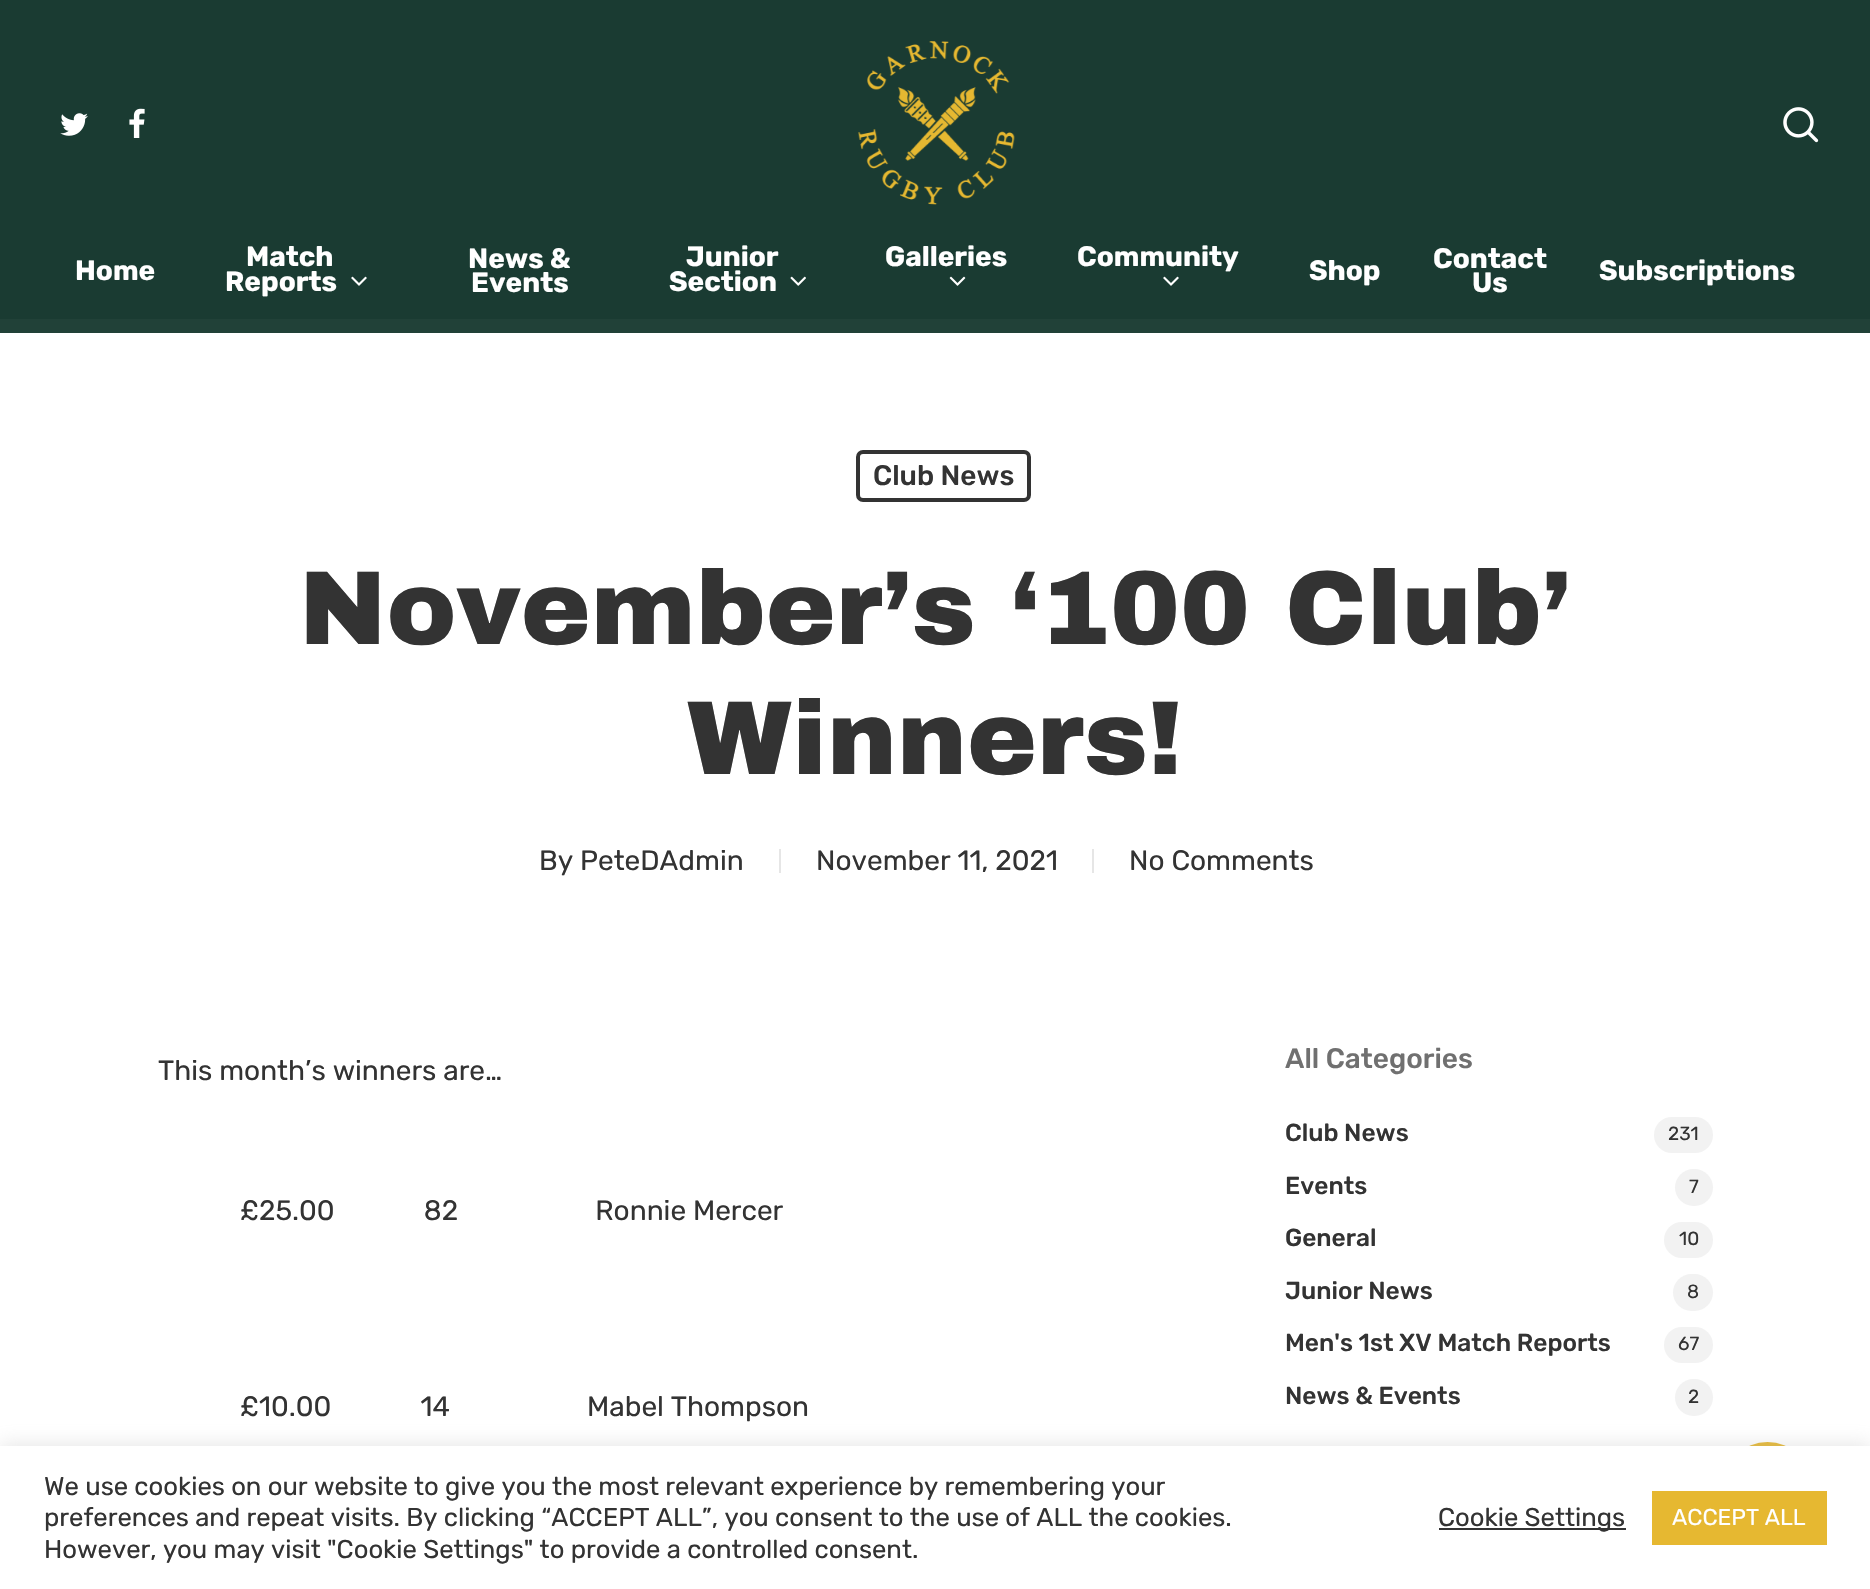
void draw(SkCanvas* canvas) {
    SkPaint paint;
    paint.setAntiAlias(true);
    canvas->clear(0xFF1A3B32);
    canvas->drawImageRect(SkImages::DeferredFromEncodedData(SkData::MakeFromFileName("img1.png")), SkRect::MakeXYWH(60, 113, 28, 23), SkSamplingOptions());
    canvas->drawImageRect(SkImages::DeferredFromEncodedData(SkData::MakeFromFileName("img2.png")), SkRect::MakeXYWH(129, 108, 16, 30), SkSamplingOptions());
    canvas->drawImageRect(SkImages::DeferredFromEncodedData(SkData::MakeFromFileName("img3.png")), SkRect::MakeXYWH(858, 41, 157, 164), SkSamplingOptions());
    canvas->drawImageRect(SkImages::DeferredFromEncodedData(SkData::MakeFromFileName("img4.png")), SkRect::MakeXYWH(1783, 107, 36, 36), SkSamplingOptions());
    SkFont font1(fontMgr->matchFamilyStyle("Rubik", SkFontStyle::Bold()), 28);
    font1.setSubpixel(true);
    paint.setColor(0xFFFFFFFF);
    canvas->drawString("Home", 75, 280, font1, paint);
    canvas->drawString("Match", 246, 266, font1, paint);
    canvas->drawString("Reports", 225, 291, font1, paint);
    canvas->drawImageRect(SkImages::DeferredFromEncodedData(SkData::MakeFromFileName("img5.png")), SkRect::MakeXYWH(351, 276, 16, 10), SkSamplingOptions());
    canvas->drawString("News &", 468, 268, font1, paint);
    canvas->drawString("Events", 471, 292, font1, paint);
    canvas->drawString("Junior", 686, 266, font1, paint);
    canvas->drawString("Section", 669, 291, font1, paint);
    canvas->drawImageRect(SkImages::DeferredFromEncodedData(SkData::MakeFromFileName("img6.png")), SkRect::MakeXYWH(790, 276, 16, 10), SkSamplingOptions());
    canvas->drawString("Galleries", 885, 266, font1, paint);
    canvas->drawImageRect(SkImages::DeferredFromEncodedData(SkData::MakeFromFileName("img7.png")), SkRect::MakeXYWH(949, 276, 17, 10), SkSamplingOptions());
    canvas->drawString("Community", 1077, 266, font1, paint);
    canvas->drawImageRect(SkImages::DeferredFromEncodedData(SkData::MakeFromFileName("img5.png")), SkRect::MakeXYWH(1163, 276, 16, 10), SkSamplingOptions());
    canvas->drawString("Shop", 1309, 280, font1, paint);
    canvas->drawString("Contact", 1433, 268, font1, paint);
    canvas->drawString("Us", 1472, 292, font1, paint);
    canvas->drawString("Subscriptions", 1599, 280, font1, paint);
    canvas->drawRect(SkRect::MakeXYWH(0, 333, 1870, 1113), paint);
    paint.setColor(0xFF214138);
    canvas->drawRect(SkRect::MakeXYWH(0, 319, 1870, 14), paint);
    paint.setStyle(SkPaint::kStroke_Style);
    paint.setStrokeWidth(4);
    paint.setColor(0xFF333333);
    canvas->drawRoundRect(SkRect::MakeXYWH(858, 452, 171, 48), 5, 5, paint);
    SkFont font2(fontMgr->matchFamilyStyle("Rubik", SkFontStyle(500, SkFontStyle::kNormal_Width, SkFontStyle::kUpright_Slant)), 28);
    font2.setSubpixel(true);
    paint.setStyle(SkPaint::kFill_Style);
    canvas->drawString("Club News", 873, 485, font2, paint);
    SkFont font3(fontMgr->matchFamilyStyle("Archivo Black", SkFontStyle(900, SkFontStyle::kNormal_Width, SkFontStyle::kUpright_Slant)), 105);
    font3.setSubpixel(true);
    canvas->drawString("November’s ‘100 Club’", 299, 644, font3, paint);
    canvas->drawString("Winners!", 687, 774, font3, paint);
    SkFont font4(fontMgr->matchFamilyStyle("Rubik", SkFontStyle::Normal()), 28);
    font4.setSubpixel(true);
    canvas->drawString("By PeteDAdmin", 539, 870, font4, paint);
    paint.setColor(0xFFE6E6E6);
    canvas->drawRect(SkRect::MakeXYWH(779, 849, 2, 24), paint);
    paint.setColor(0xFF333333);
    canvas->drawString("November 11, 2021", 816, 870, font4, paint);
    paint.setColor(0xFFE6E6E6);
    canvas->drawRect(SkRect::MakeXYWH(1092, 849, 2, 24), paint);
    paint.setColor(0xFF333333);
    canvas->drawString("No Comments", 1129, 870, font4, paint);
    canvas->drawString("This month’s winners are…", 158, 1080, font4, paint);
    canvas->drawString("£25.00             82                    Ronnie Mercer", 240, 1220, font4, paint);
    canvas->drawString("£10.00             14                    Mabel Thompson", 240, 1416, font4, paint);
    paint.setColor(0xFF707070);
    canvas->drawString("All Categories", 1285, 1068, font2, paint);
    SkFont font5(fontMgr->matchFamilyStyle("Rubik", SkFontStyle(500, SkFontStyle::kNormal_Width, SkFontStyle::kUpright_Slant)), 24.5f);
    font5.setSubpixel(true);
    paint.setColor(0xFF333333);
    canvas->drawString("Club News", 1285, 1141, font5, paint);
    paint.setColor(0xFFF2F2F2);
    canvas->drawRoundRect(SkRect::MakeXYWH(1654, 1117, 59, 36), 18, 18, paint);
    SkFont font6(fontMgr->matchFamilyStyle("Rubik", SkFontStyle::Normal()), 19);
    font6.setSubpixel(true);
    paint.setColor(0xFF333333);
    canvas->drawString("231", 1668, 1140, font6, paint);
    canvas->drawString("Events", 1285, 1194, font5, paint);
    paint.setColor(0xFFF2F2F2);
    canvas->drawRoundRect(SkRect::MakeXYWH(1675, 1169, 38, 37), 18.5f, 18.5f, paint);
    paint.setColor(0xFF333333);
    canvas->drawString("7", 1689, 1193, font6, paint);
    canvas->drawString("General", 1285, 1246, font5, paint);
    paint.setColor(0xFFF2F2F2);
    canvas->drawRoundRect(SkRect::MakeXYWH(1664, 1222, 49, 36), 18, 18, paint);
    paint.setColor(0xFF333333);
    canvas->drawString("10", 1679, 1245, font6, paint);
    canvas->drawString("Junior News", 1285, 1299, font5, paint);
    paint.setColor(0xFFF2F2F2);
    canvas->drawRoundRect(SkRect::MakeXYWH(1673, 1274, 40, 37), 18.5f, 18.5f, paint);
    paint.setColor(0xFF333333);
    canvas->drawString("8", 1687, 1298, font6, paint);
    canvas->drawString("Men's 1st XV Match Reports", 1285, 1351, font5, paint);
    paint.setColor(0xFFF2F2F2);
    canvas->drawRoundRect(SkRect::MakeXYWH(1664, 1327, 49, 36), 18, 18, paint);
    paint.setColor(0xFF333333);
    canvas->drawString("67", 1678, 1350, font6, paint);
    canvas->drawString("News & Events", 1285, 1404, font5, paint);
    paint.setColor(0xFFF2F2F2);
    canvas->drawRoundRect(SkRect::MakeXYWH(1675, 1379, 38, 37), 18.5f, 18.5f, paint);
    paint.setColor(0xFF333333);
    canvas->drawString("2", 1688, 1403, font6, paint);
    paint.setColor(0xFFE6B831);
    canvas->drawRoundRect(SkRect::MakeXYWH(1724, 1442, 87, 88), 43.5f, 43.5f, paint);
    paint.setColor(0x4DACABAB);
    paint.setMaskFilter(SkMaskFilter::MakeBlur(kNormal_SkBlurStyle, 9));
    canvas->drawRect(SkRect::MakeXYWH(0, 1444, 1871, 143), paint);
    paint.setMaskFilter(nullptr);
    paint.setColor(0xFFFFFFFF);
    canvas->drawRect(SkRect::MakeXYWH(0, 1446, 1870, 143), paint);
    SkFont font7(fontMgr->matchFamilyStyle("Rubik", SkFontStyle::Normal()), 25.65f);
    font7.setSubpixel(true);
    paint.setColor(0xFF333333);
    canvas->drawString("We use cookies on our website to give you the most relevant experience by remembering your", 44, 1495, font7, paint);
    canvas->drawString("preferences and repeat visits. By clicking “ACCEPT ALL”, you consent to the use of ALL the cookies.", 44, 1526, font7, paint);
    canvas->drawString("However, you may visit \"Cookie Settings\" to provide a controlled consent.", 44, 1558, font7, paint);
    canvas->drawRect(SkRect::MakeXYWH(1439, 1528, 187, 2), paint);
    canvas->drawString("Cookie Settings", 1438, 1526, font7, paint);
    paint.setColor(0xFFE6B831);
    canvas->drawRect(SkRect::MakeXYWH(1652, 1491, 175, 54), paint);
    SkFont font8(fontMgr->matchFamilyStyle("Rubik", SkFontStyle::Normal()), 22.75f);
    font8.setSubpixel(true);
    paint.setColor(0xFFFFFFFF);
    canvas->drawString("ACCEPT ALL", 1672, 1525, font8, paint);
}
